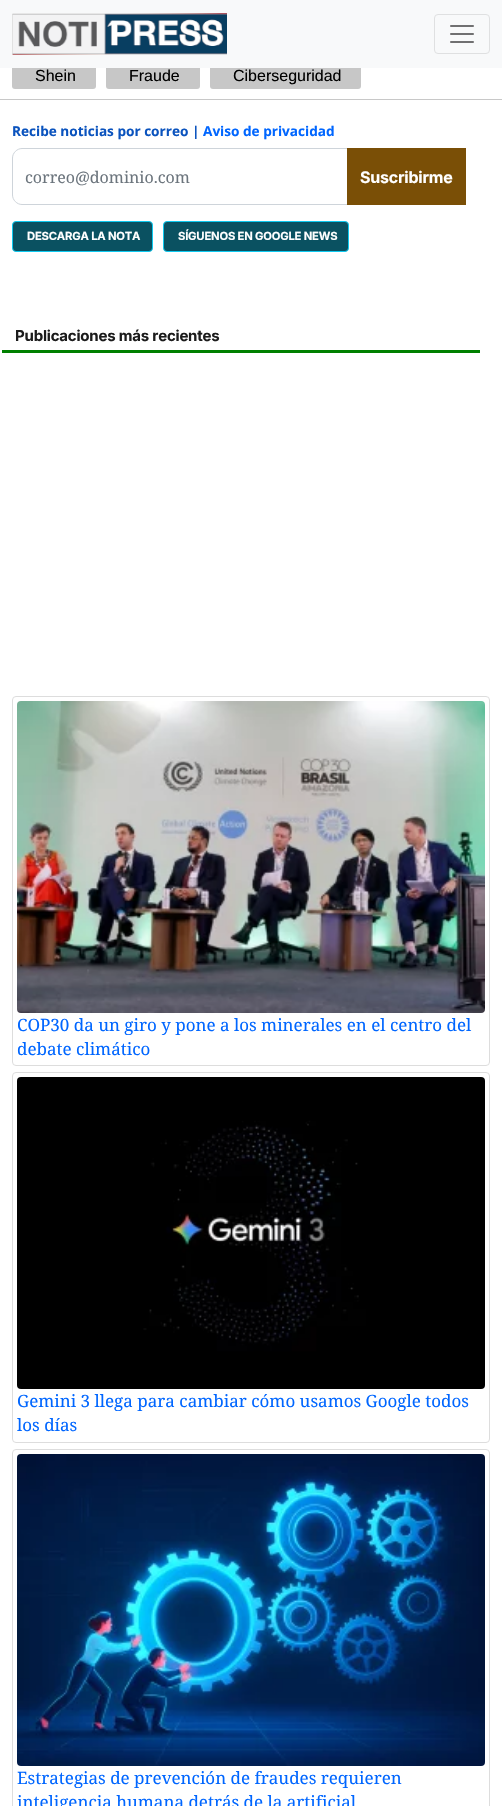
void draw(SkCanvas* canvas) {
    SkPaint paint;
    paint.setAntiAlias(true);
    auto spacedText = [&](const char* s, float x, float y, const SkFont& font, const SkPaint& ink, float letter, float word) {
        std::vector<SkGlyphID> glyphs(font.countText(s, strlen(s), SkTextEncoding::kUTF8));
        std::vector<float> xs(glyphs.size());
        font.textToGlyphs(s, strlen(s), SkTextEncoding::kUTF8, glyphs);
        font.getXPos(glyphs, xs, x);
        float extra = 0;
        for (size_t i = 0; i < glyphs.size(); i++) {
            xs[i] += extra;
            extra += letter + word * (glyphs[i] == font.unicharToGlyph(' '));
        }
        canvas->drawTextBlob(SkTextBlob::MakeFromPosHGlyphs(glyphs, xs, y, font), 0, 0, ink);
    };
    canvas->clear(0xFFFFFFFF);
    paint.setColor(0xFFC7C7C7);
    canvas->drawRoundRect(SkRect::MakeXYWH(12, 63, 84, 26), 3, 3, paint);
    canvas->drawRoundRect(SkRect::MakeXYWH(106, 63, 94, 26), 3, 3, paint);
    canvas->drawRoundRect(SkRect::MakeXYWH(210, 63, 151, 26), 3, 3, paint);
    paint.setColor(0xFFF8F9FA);
    canvas->drawRect(SkRect::MakeXYWH(0, 0, 502, 68), paint);
    canvas->drawImageRect(SkImages::DeferredFromEncodedData(SkData::MakeFromFileName("img1.png")), SkRect::MakeXYWH(12, 13, 215, 42), SkSamplingOptions());
    paint.setStyle(SkPaint::kStroke_Style);
    paint.setStrokeWidth(1);
    paint.setColor(0xFFDFE0E1);
    canvas->drawRoundRect(SkRect::MakeXYWH(434.5f, 14.5f, 55, 39), 3.5f, 3.5f, paint);
    canvas->drawImageRect(SkImages::DeferredFromEncodedData(SkData::MakeFromFileName("img2.png")), SkRect::MakeXYWH(450, 25, 24, 18), SkSamplingOptions());
    SkFont font1(fontMgr->matchFamilyStyle("Liberation Sans", SkFontStyle::Normal()), 16);
    font1.setSubpixel(true);
    paint.setStyle(SkPaint::kFill_Style);
    paint.setColor(0xFF000000);
    canvas->drawString("Shein", 35, 81, font1, paint);
    canvas->drawString("Fraude", 129, 81, font1, paint);
    canvas->drawString("Ciberseguridad", 233, 81, font1, paint);
    paint.setColor(0xFFC8C8C8);
    canvas->drawRect(SkRect::MakeXYWH(0, 99, 502, 1), paint);
    SkFont font2(fontMgr->matchFamilyStyle("Open Sans", SkFontStyle::Bold()), 13.6f);
    font2.setSubpixel(true);
    paint.setColor(0xFF0A53BE);
    canvas->drawString("Recibe noticias por correo |", 12, 136, font2, paint);
    paint.setColor(0xFF0066FF);
    canvas->drawString("Aviso de privacidad", 203, 136, font2, paint);
    paint.setStyle(SkPaint::kStroke_Style);
    paint.setColor(0xFFCED4DA);
    canvas->drawPath(SkPathBuilder().moveTo(22, 148.5f).lineTo(347.5f, 148.5f).lineTo(347.5f, 204.5f).lineTo(22, 204.5f).cubicTo(17, 204.5f, 12.5f, 200, 12.5f, 195).lineTo(12.5f, 158).cubicTo(12.5f, 153, 17, 148.5f, 22, 148.5f).close().detach(), paint);
    SkFont font3(fontMgr->matchFamilyStyle("Noto Serif", SkFontStyle::Normal()), 16);
    font3.setSubpixel(true);
    paint.setStyle(SkPaint::kFill_Style);
    paint.setColor(0xFF6C757D);
    canvas->drawString("correo@dominio.com", 25, 183, font3, paint);
    paint.setColor(0xFF7A4F06);
    canvas->drawRect(SkRect::MakeXYWH(347, 148, 119, 57), paint);
    SkFont font4(fontMgr->matchFamilyStyle("Inter", SkFontStyle::Bold()), 16);
    font4.setSubpixel(true);
    paint.setColor(0xFFFFFFFF);
    spacedText("Suscribirme", 360, 183, font4, paint, -0.2f, 0);
    paint.setColor(0xFF0A5161);
    canvas->drawRoundRect(SkRect::MakeXYWH(12.5f, 221.5f, 140, 30), 3.5f, 3.5f, paint);
    paint.setStyle(SkPaint::kStroke_Style);
    paint.setColor(0xFF0DCAF0);
    canvas->drawRoundRect(SkRect::MakeXYWH(12.5f, 221.5f, 140, 30), 3.5f, 3.5f, paint);
    SkFont font5(fontMgr->matchFamilyStyle("Inter", SkFontStyle::Bold()), 11.25f);
    font5.setSubpixel(true);
    paint.setStyle(SkPaint::kFill_Style);
    paint.setColor(0xFFFFFFFF);
    spacedText("DESCARGA LA NOTA", 27, 240, font5, paint, -0.2f, 0);
    paint.setColor(0xFF0A5161);
    canvas->drawRoundRect(SkRect::MakeXYWH(163.5f, 221.5f, 185, 30), 3.5f, 3.5f, paint);
    paint.setStyle(SkPaint::kStroke_Style);
    paint.setColor(0xFF0DCAF0);
    canvas->drawRoundRect(SkRect::MakeXYWH(163.5f, 221.5f, 185, 30), 3.5f, 3.5f, paint);
    paint.setStyle(SkPaint::kFill_Style);
    paint.setColor(0xFFFFFFFF);
    spacedText("SÍGUENOS EN GOOGLE NEWS", 178, 240, font5, paint, -0.2f, 0);
    paint.setColor(0xFF008000);
    canvas->drawRect(SkRect::MakeXYWH(2, 350, 478, 3), paint);
    SkFont font6(fontMgr->matchFamilyStyle("Inter", SkFontStyle::Bold()), 15);
    font6.setSubpixel(true);
    paint.setColor(0xFF1C1C1C);
    spacedText("Publicaciones más recientes", 15, 341, font6, paint, -0.2f, 0);
    paint.setStyle(SkPaint::kStroke_Style);
    paint.setColor(0xFFDDDDDD);
    canvas->drawRoundRect(SkRect::MakeXYWH(12.5f, 696.5f, 477, 369), 3.5f, 3.5f, paint);
    canvas->drawImageRect(SkImages::DeferredFromEncodedData(SkData::MakeFromFileName("img3.png")), SkRect::MakeXYWH(17, 701, 468, 312), SkSamplingOptions());
    SkFont font7(fontMgr->matchFamilyStyle("Noto Serif", SkFontStyle::Normal()), 17);
    font7.setSubpixel(true);
    paint.setStyle(SkPaint::kFill_Style);
    paint.setColor(0xFF0066FF);
    canvas->drawString("COP30 da un giro y pone a los minerales en el centro del", 17, 1031, font7, paint);
    canvas->drawString("debate climático", 17, 1055, font7, paint);
    paint.setStyle(SkPaint::kStroke_Style);
    paint.setColor(0xFFDDDDDD);
    canvas->drawRoundRect(SkRect::MakeXYWH(12.5f, 1072.5f, 477, 370), 3.5f, 3.5f, paint);
    canvas->drawImageRect(SkImages::DeferredFromEncodedData(SkData::MakeFromFileName("img4.png")), SkRect::MakeXYWH(17, 1077, 468, 312), SkSamplingOptions());
    paint.setStyle(SkPaint::kFill_Style);
    paint.setColor(0xFF0066FF);
    canvas->drawString("Gemini 3 llega para cambiar cómo usamos Google todos", 17, 1407, font7, paint);
    canvas->drawString("los días", 17, 1431, font7, paint);
    paint.setStyle(SkPaint::kStroke_Style);
    paint.setColor(0xFFDDDDDD);
    canvas->drawRoundRect(SkRect::MakeXYWH(12.5f, 1449.5f, 477, 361), 3.5f, 3.5f, paint);
    canvas->drawImageRect(SkImages::DeferredFromEncodedData(SkData::MakeFromFileName("img5.png")), SkRect::MakeXYWH(17, 1454, 468, 312), SkSamplingOptions());
    paint.setStyle(SkPaint::kFill_Style);
    paint.setColor(0xFF0066FF);
    canvas->drawString("Estrategias de prevención de fraudes requieren", 17, 1784, font7, paint);
    canvas->drawString("inteligencia humana detrás de la artificial", 17, 1808, font7, paint);
}
